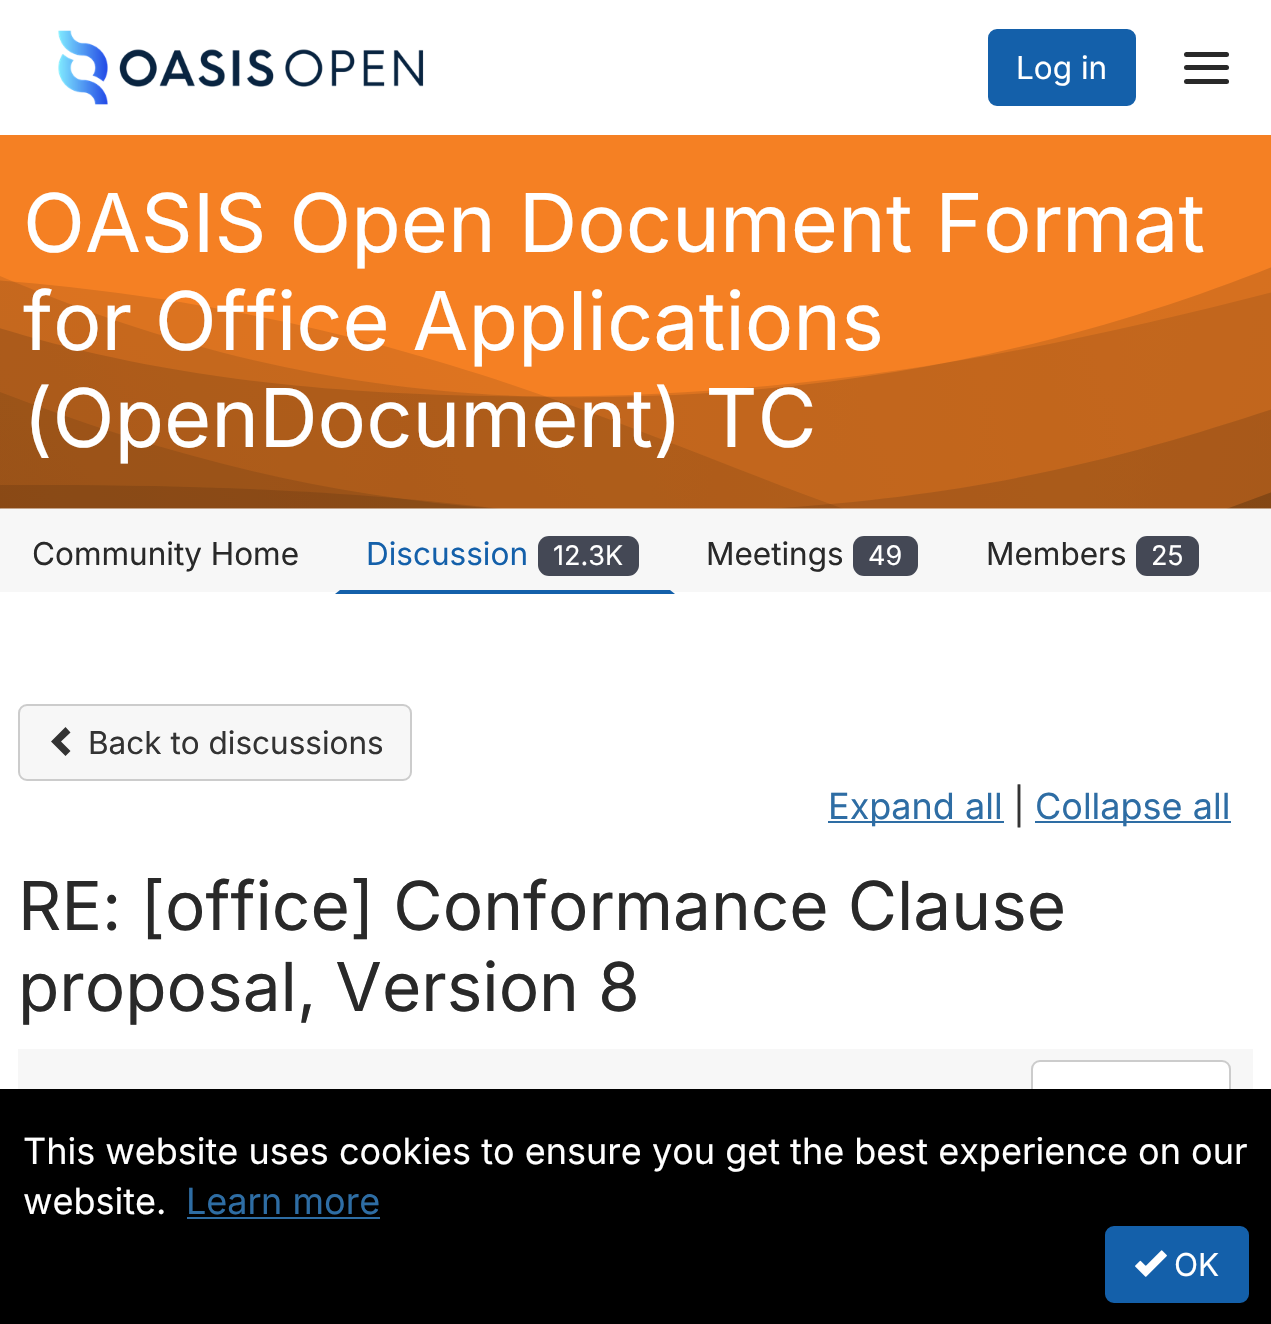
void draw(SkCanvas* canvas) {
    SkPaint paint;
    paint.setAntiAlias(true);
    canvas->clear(0xFFFFFFFF);
    canvas->drawImageRect(SkImages::DeferredFromEncodedData(SkData::MakeFromFileName("img1.png")), SkRect::MakeXYWH(58, 30, 366, 75), SkSamplingOptions());
    paint.setColor(0xFF1460AA);
    canvas->drawRoundRect(SkRect::MakeXYWH(989, 30, 146, 75), 8, 8, paint);
    paint.setStyle(SkPaint::kStroke_Style);
    paint.setStrokeWidth(2);
    canvas->drawRoundRect(SkRect::MakeXYWH(989, 30, 146, 75), 8, 8, paint);
    SkFont font1(fontMgr->matchFamilyStyle("Inter", SkFontStyle::Normal()), 31.5f);
    font1.setSubpixel(true);
    paint.setStyle(SkPaint::kFill_Style);
    paint.setColor(0xFFFFFFFF);
    canvas->drawString("Log in", 1016, 79, font1, paint);
    paint.setColor(0xFF292929);
    canvas->drawRoundRect(SkRect::MakeXYWH(1184, 52, 45, 5), 2.5f, 2.5f, paint);
    canvas->drawRoundRect(SkRect::MakeXYWH(1184, 65, 45, 5), 2.5f, 2.5f, paint);
    canvas->drawRoundRect(SkRect::MakeXYWH(1184, 79, 45, 5), 2.5f, 2.5f, paint);
    canvas->drawImageRect(SkImages::DeferredFromEncodedData(SkData::MakeFromFileName("img2.png")), SkRect::MakeXYWH(0, 135, 1271, 374), SkSamplingOptions());
    SkFont font2(fontMgr->matchFamilyStyle("Inter", SkFontStyle::Normal()), 81);
    font2.setSubpixel(true);
    paint.setColor(0xFFFFFFFF);
    canvas->drawString("OASIS Open Document Format", 23, 252, font2, paint);
    canvas->drawString("for Office Applications", 23, 350, font2, paint);
    canvas->drawString("(OpenDocument) TC", 23, 447, font2, paint);
    paint.setColor(0xFFF7F7F7);
    canvas->drawRect(SkRect::MakeXYWH(0, 509, 1271, 83), paint);
    paint.setColor(0xFF292929);
    canvas->drawString("Community Home", 32, 565, font1, paint);
    paint.setColor(0xFF1460AA);
    canvas->drawPath(SkPathBuilder().moveTo(675, 594).lineTo(335, 594).lineTo(340, 590).lineTo(670, 590).close().detach(), paint);
    canvas->drawString("Discussion", 366, 565, font1, paint);
    paint.setColor(0xFF444855);
    canvas->drawRoundRect(SkRect::MakeXYWH(538, 536, 101, 40), 11, 11, paint);
    SkFont font3(fontMgr->matchFamilyStyle("Inter", SkFontStyle::Normal()), 27);
    font3.setSubpixel(true);
    paint.setColor(0xFFFFFFFF);
    canvas->drawString("12.3K", 553, 565, font3, paint);
    paint.setColor(0xFF292929);
    canvas->drawString("Meetings", 706, 565, font1, paint);
    paint.setColor(0xFF444855);
    canvas->drawRoundRect(SkRect::MakeXYWH(853, 536, 65, 40), 11, 11, paint);
    paint.setColor(0xFFFFFFFF);
    canvas->drawString("49", 868, 565, font3, paint);
    paint.setColor(0xFF292929);
    canvas->drawString("Members", 986, 565, font1, paint);
    paint.setColor(0xFF444855);
    canvas->drawRoundRect(SkRect::MakeXYWH(1136, 536, 63, 40), 11, 11, paint);
    paint.setColor(0xFFFFFFFF);
    canvas->drawString("25", 1151, 565, font3, paint);
    paint.setColor(0xFFF7F7F7);
    canvas->drawRoundRect(SkRect::MakeXYWH(19, 705, 392, 75), 8, 8, paint);
    paint.setStyle(SkPaint::kStroke_Style);
    paint.setColor(0xFFCCCCCC);
    canvas->drawRoundRect(SkRect::MakeXYWH(19, 705, 392, 75), 8, 8, paint);
    paint.setStyle(SkPaint::kFill_Style);
    paint.setColor(0xFF333333);
    canvas->drawPath(SkPathBuilder().moveTo(70.5f, 732.5f).lineTo(61, 741.5f).lineTo(70.5f, 751).lineTo(65.5f, 756).lineTo(51, 741.5f).lineTo(65.5f, 727).close().detach(), paint);
    canvas->drawString("Back to discussions", 88, 754, font1, paint);
    paint.setColor(0xFF2E6DA4);
    canvas->drawRect(SkRect::MakeXYWH(828, 821, 176, 2), paint);
    SkFont font4(fontMgr->matchFamilyStyle("Inter", SkFontStyle::Normal()), 36);
    font4.setSubpixel(true);
    canvas->drawString("Expand all", 828, 819, font4, paint);
    paint.setColor(0xFF333333);
    canvas->drawString("|", 1013, 819, font4, paint);
    paint.setColor(0xFF2E6DA4);
    canvas->drawRect(SkRect::MakeXYWH(1035, 821, 196, 2), paint);
    canvas->drawString("Collapse all", 1035, 819, font4, paint);
    SkFont font5(fontMgr->matchFamilyStyle("Inter", SkFontStyle::Normal()), 67.5f);
    font5.setSubpixel(true);
    paint.setColor(0xFF292929);
    canvas->drawString("RE: [office] Conformance Clause", 18, 930, font5, paint);
    canvas->drawString("proposal, Version 8", 18, 1011, font5, paint);
    paint.setColor(0xFFF7F7F7);
    canvas->drawRect(SkRect::MakeXYWH(18, 1049, 1235, 40), paint);
    paint.setColor(0xFFFFFFFF);
    canvas->drawRoundRect(SkRect::MakeXYWH(1032, 1061, 198, 61), 8, 8, paint);
    paint.setStyle(SkPaint::kStroke_Style);
    paint.setColor(0xFFCCCCCC);
    canvas->drawRoundRect(SkRect::MakeXYWH(1032, 1061, 198, 61), 8, 8, paint);
    paint.setStyle(SkPaint::kFill_Style);
    paint.setColor(0xFF000000);
    canvas->drawRect(SkRect::MakeXYWH(0, 1089, 1271, 235), paint);
    paint.setColor(0xFFFFFFFF);
    canvas->drawString("This website uses cookies to ensure you get the best experience on our", 23, 1164, font4, paint);
    canvas->drawString("website.", 23, 1214, font4, paint);
    paint.setColor(0xFF2E6DA4);
    canvas->drawString("Learn more", 186, 1214, font4, paint);
    canvas->drawRect(SkRect::MakeXYWH(187, 1217, 193, 2), paint);
    paint.setColor(0xFF1460AA);
    canvas->drawRoundRect(SkRect::MakeXYWH(1106, 1227, 142, 75), 8, 8, paint);
    paint.setStyle(SkPaint::kStroke_Style);
    canvas->drawRoundRect(SkRect::MakeXYWH(1106, 1227, 142, 75), 8, 8, paint);
    canvas->drawImageRect(SkImages::DeferredFromEncodedData(SkData::MakeFromFileName("img3.png")), SkRect::MakeXYWH(1135, 1250, 32, 27), SkSamplingOptions());
    paint.setStyle(SkPaint::kFill_Style);
    paint.setColor(0xFFFFFFFF);
    canvas->drawString("OK", 1174, 1276, font1, paint);
}
